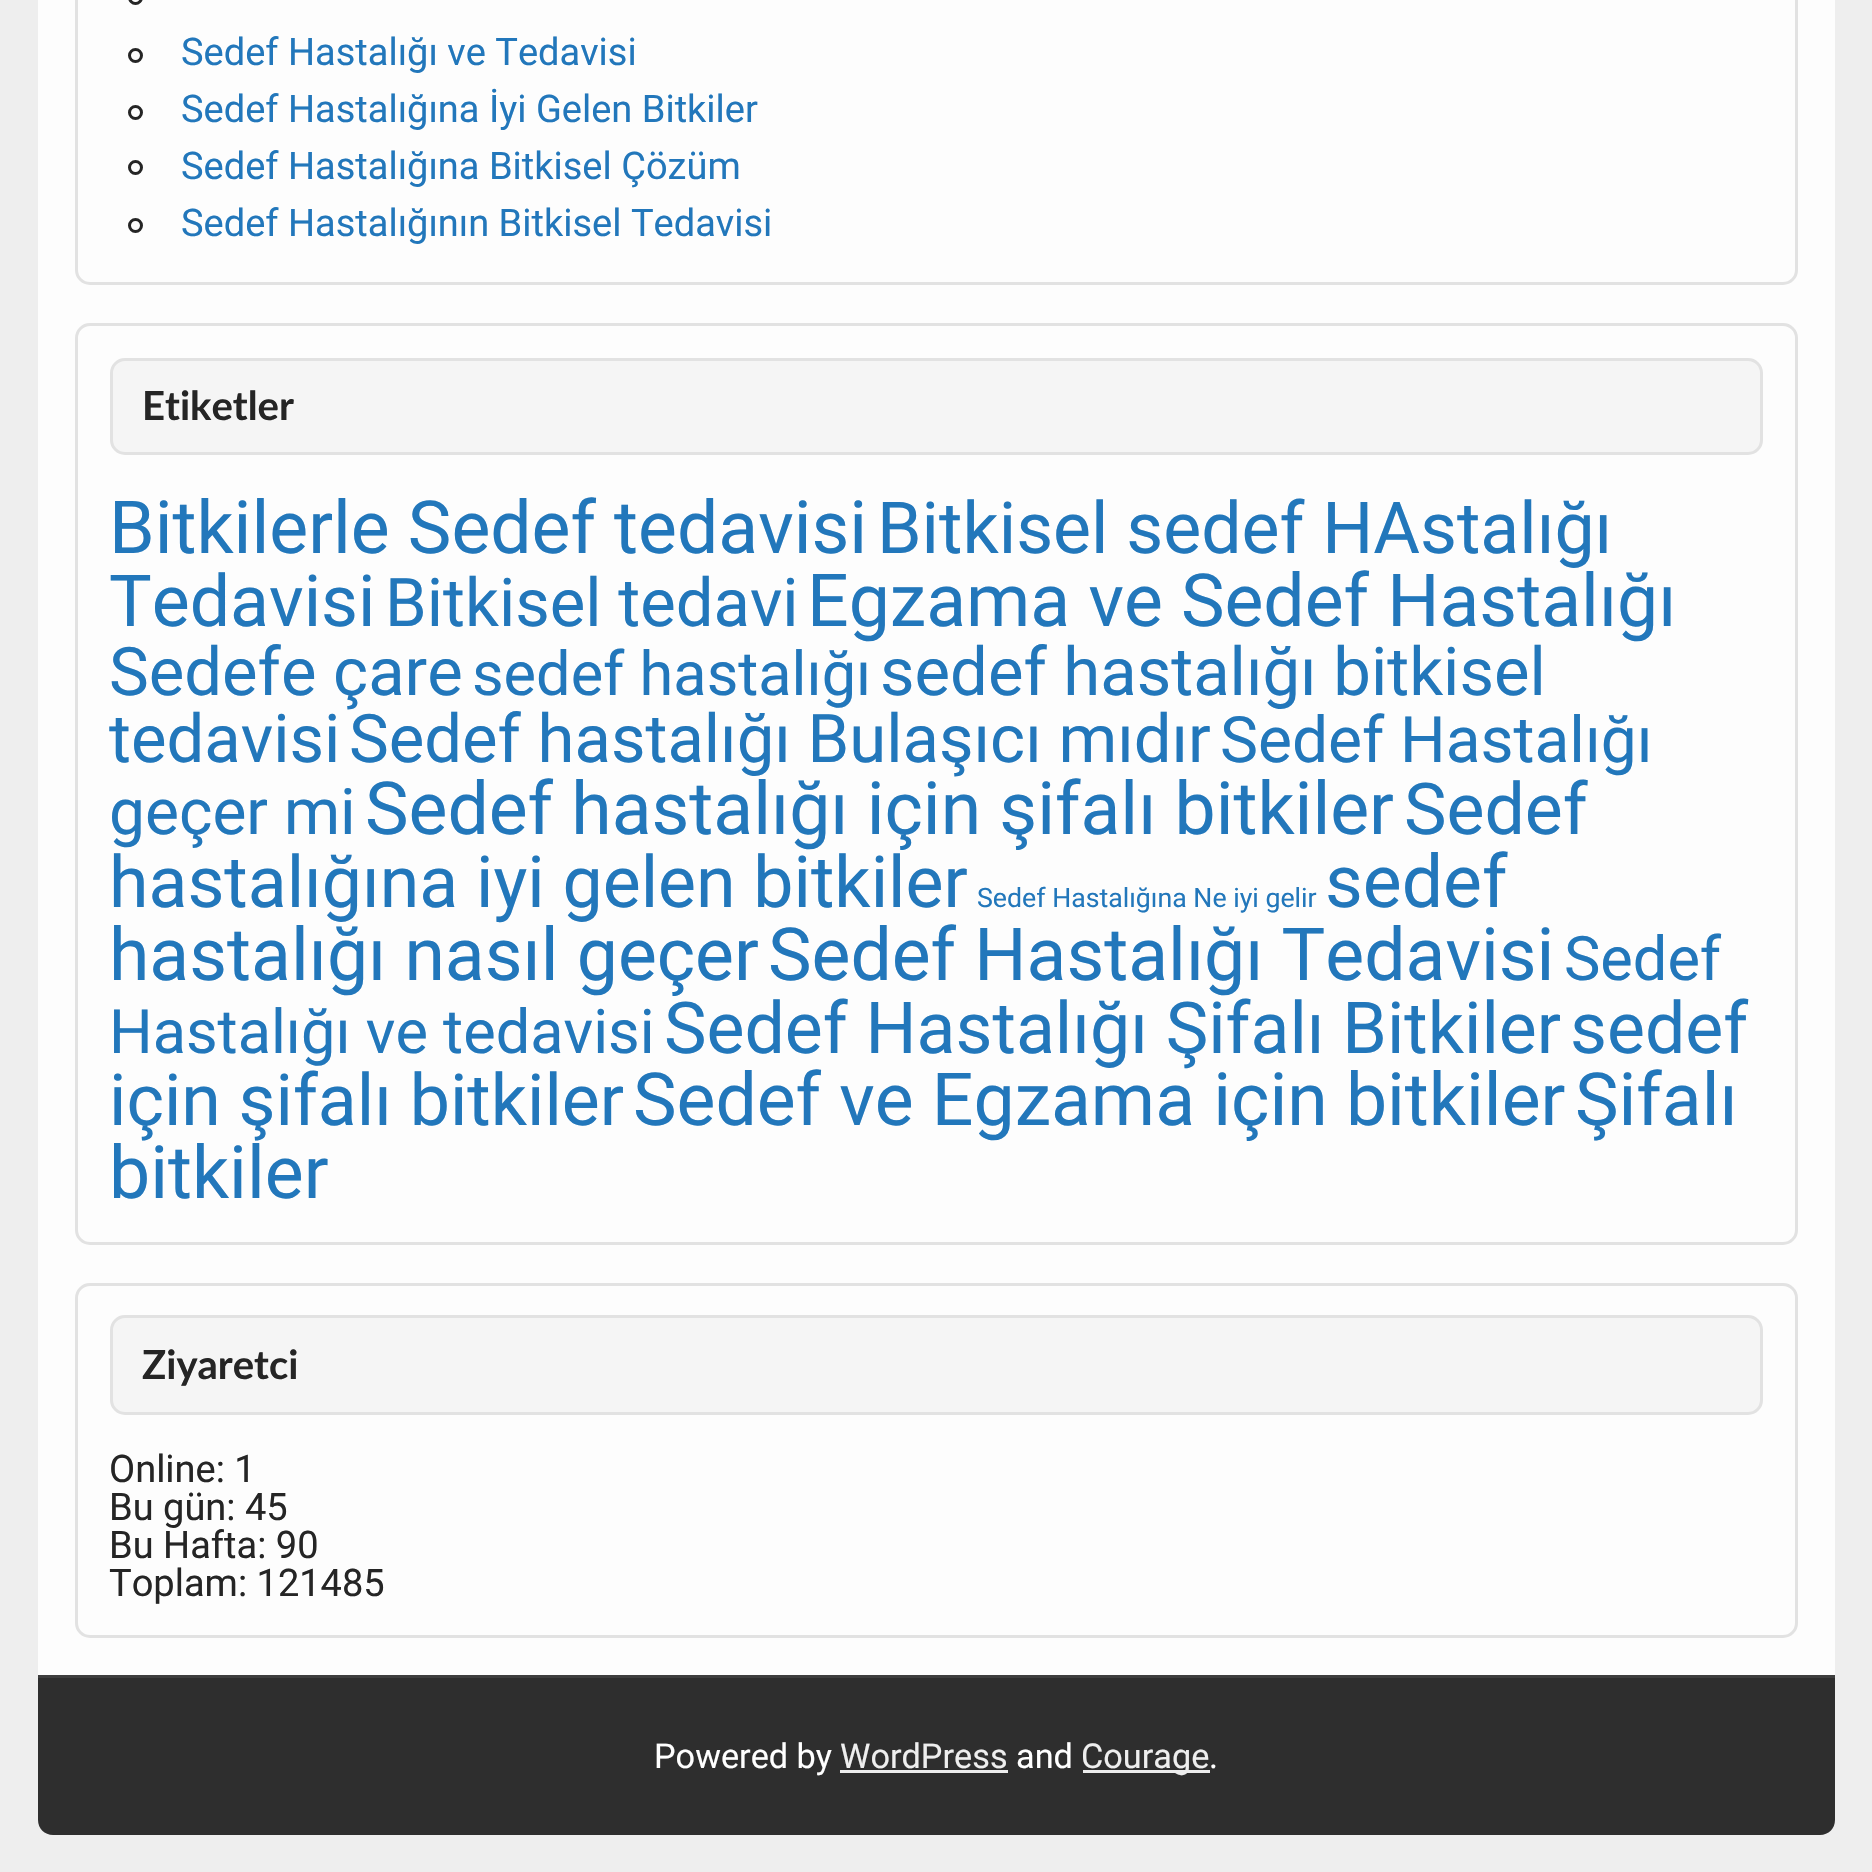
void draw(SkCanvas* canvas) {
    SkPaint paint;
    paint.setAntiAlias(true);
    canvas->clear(0xFFEEEEEE);
    paint.setColor(0xFFFDFDFD);
    canvas->drawRect(SkRect::MakeXYWH(38, 0, 1797, 1675), paint);
    paint.setStyle(SkPaint::kStroke_Style);
    paint.setStrokeWidth(3);
    paint.setColor(0xFFE2E2E2);
    canvas->drawRoundRect(SkRect::MakeXYWH(76.5f, -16.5f, 1720, 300), 13.5f, 13.5f, paint);
    paint.setColor(0xFF252525);
    canvas->drawCircle(135.5f, -2.5f, 6, paint);
    canvas->drawCircle(135.5f, 55.5f, 6, paint);
    SkFont font1(fontMgr->matchFamilyStyle("Roboto", SkFontStyle::Normal()), 38);
    font1.setSubpixel(true);
    paint.setStyle(SkPaint::kFill_Style);
    paint.setColor(0xFF2277BB);
    canvas->drawString("Sedef Hastalığı ve Tedavisi", 181, 65, font1, paint);
    paint.setStyle(SkPaint::kStroke_Style);
    paint.setColor(0xFF252525);
    canvas->drawCircle(135.5f, 112.5f, 6, paint);
    paint.setStyle(SkPaint::kFill_Style);
    paint.setColor(0xFF2277BB);
    canvas->drawString("Sedef Hastalığına İyi Gelen Bitkiler", 181, 122, font1, paint);
    paint.setStyle(SkPaint::kStroke_Style);
    paint.setColor(0xFF252525);
    canvas->drawCircle(135.5f, 167.5f, 6, paint);
    paint.setStyle(SkPaint::kFill_Style);
    paint.setColor(0xFF2277BB);
    canvas->drawString("Sedef Hastalığına Bitkisel Çözüm", 181, 179, font1, paint);
    paint.setStyle(SkPaint::kStroke_Style);
    paint.setColor(0xFF252525);
    canvas->drawCircle(135.5f, 225.5f, 6, paint);
    paint.setStyle(SkPaint::kFill_Style);
    paint.setColor(0xFF2277BB);
    canvas->drawString("Sedef Hastalığının Bitkisel Tedavisi", 181, 236, font1, paint);
    paint.setStyle(SkPaint::kStroke_Style);
    paint.setColor(0xFFE2E2E2);
    canvas->drawRoundRect(SkRect::MakeXYWH(76.5f, 324.5f, 1720, 919), 13.5f, 13.5f, paint);
    paint.setStyle(SkPaint::kFill_Style);
    paint.setColor(0xFFF5F5F5);
    canvas->drawRoundRect(SkRect::MakeXYWH(111.5f, 359.5f, 1650, 94), 13.5f, 13.5f, paint);
    paint.setStyle(SkPaint::kStroke_Style);
    paint.setColor(0xFFE2E2E2);
    canvas->drawRoundRect(SkRect::MakeXYWH(111.5f, 359.5f, 1650, 94), 13.5f, 13.5f, paint);
    SkFont font2(fontMgr->matchFamilyStyle("Lato", SkFontStyle::Bold()), 40);
    font2.setSubpixel(true);
    paint.setStyle(SkPaint::kFill_Style);
    paint.setColor(0xFF252525);
    canvas->drawString("Etiketler", 142, 420, font2, paint);
    SkFont font3(fontMgr->matchFamilyStyle("Roboto", SkFontStyle::Normal()), 73.3f);
    font3.setSubpixel(true);
    paint.setColor(0xFF2277BB);
    canvas->drawString("Bitkilerle Sedef tedavisi", 109, 553, font3, paint);
    SkFont font4(fontMgr->matchFamilyStyle("Roboto", SkFontStyle::Normal()), 71.6f);
    font4.setSubpixel(true);
    canvas->drawString("Bitkisel sedef HAstalığı", 877, 553, font4, paint);
    canvas->drawString("Tedavisi", 109, 626, font4, paint);
    SkFont font5(fontMgr->matchFamilyStyle("Roboto", SkFontStyle::Normal()), 67);
    font5.setSubpixel(true);
    canvas->drawString("Bitkisel tedavi", 385, 626, font5, paint);
    canvas->drawString("Egzama ve Sedef Hastalığı", 807, 626, font3, paint);
    canvas->drawString("Sedefe çare", 109, 695, font5, paint);
    SkFont font6(fontMgr->matchFamilyStyle("Roboto", SkFontStyle::Normal()), 61.25f);
    font6.setSubpixel(true);
    canvas->drawString("sedef hastalığı", 472, 695, font6, paint);
    canvas->drawString("sedef hastalığı bitkisel", 880, 695, font5, paint);
    canvas->drawString("tedavisi", 109, 762, font5, paint);
    canvas->drawString("Sedef hastalığı Bulaşıcı mıdır", 349, 762, font5, paint);
    SkFont font7(fontMgr->matchFamilyStyle("Roboto", SkFontStyle::Normal()), 64);
    font7.setSubpixel(true);
    canvas->drawString("Sedef Hastalığı", 1220, 762, font7, paint);
    canvas->drawString("geçer mi", 109, 834, font7, paint);
    canvas->drawString("Sedef hastalığı için şifalı bitkiler", 365, 834, font3, paint);
    canvas->drawString("Sedef", 1404, 834, font4, paint);
    canvas->drawString("hastalığına iyi gelen bitkiler", 109, 907, font4, paint);
    SkFont font8(fontMgr->matchFamilyStyle("Roboto", SkFontStyle::Normal()), 26.7f);
    font8.setSubpixel(true);
    canvas->drawString("Sedef Hastalığına Ne iyi gelir", 977, 907, font8, paint);
    canvas->drawString("sedef", 1325, 907, font3, paint);
    canvas->drawString("hastalığı nasıl geçer", 109, 980, font3, paint);
    canvas->drawString("Sedef Hastalığı Tedavisi", 768, 980, font3, paint);
    canvas->drawString("Sedef", 1564, 980, font6, paint);
    canvas->drawString("Hastalığı ve tedavisi", 109, 1053, font6, paint);
    canvas->drawString("Sedef Hastalığı Şifalı Bitkiler", 664, 1053, font4, paint);
    canvas->drawString("sedef", 1570, 1053, font4, paint);
    canvas->drawString("için şifalı bitkiler", 109, 1125, font4, paint);
    canvas->drawString("Sedef ve Egzama için bitkiler", 633, 1125, font3, paint);
    canvas->drawString("Şifalı", 1575, 1125, font3, paint);
    canvas->drawString("bitkiler", 109, 1198, font3, paint);
    paint.setStyle(SkPaint::kStroke_Style);
    paint.setColor(0xFFE2E2E2);
    canvas->drawRoundRect(SkRect::MakeXYWH(76.5f, 1284.5f, 1720, 352), 13.5f, 13.5f, paint);
    paint.setStyle(SkPaint::kFill_Style);
    paint.setColor(0xFFF5F5F5);
    canvas->drawRoundRect(SkRect::MakeXYWH(111.5f, 1316.5f, 1650, 97), 13.5f, 13.5f, paint);
    paint.setStyle(SkPaint::kStroke_Style);
    paint.setColor(0xFFE2E2E2);
    canvas->drawRoundRect(SkRect::MakeXYWH(111.5f, 1316.5f, 1650, 97), 13.5f, 13.5f, paint);
    paint.setStyle(SkPaint::kFill_Style);
    paint.setColor(0xFF252525);
    canvas->drawString("Ziyaretci", 142, 1379, font2, paint);
    canvas->drawString("Online: 1", 109, 1482, font1, paint);
    canvas->drawString("Bu gün: 45", 109, 1520, font1, paint);
    canvas->drawString("Bu Hafta: 90", 109, 1558, font1, paint);
    canvas->drawString("Toplam: 121485", 109, 1596, font1, paint);
    paint.setColor(0xFF2E2E2E);
    canvas->drawPath(SkPathBuilder().moveTo(38, 1675).lineTo(1835, 1675).lineTo(1835, 1820).cubicTo(1835, 1828.5f, 1828.5f, 1835, 1820, 1835).lineTo(53, 1835).cubicTo(44.5f, 1835, 38, 1828.5f, 38, 1820).close().detach(), paint);
    paint.setColor(0xFF3E3E3E);
    canvas->drawRect(SkRect::MakeXYWH(38, 1675, 1797, 3), paint);
    SkFont font9(fontMgr->matchFamilyStyle("Roboto", SkFontStyle::Normal()), 34.25f);
    font9.setSubpixel(true);
    paint.setColor(0xFFFFFFFF);
    canvas->drawString("Powered by", 654, 1768, font9, paint);
    paint.setColor(0xFFEEEEEE);
    canvas->drawString("WordPress", 840, 1768, font9, paint);
    canvas->drawRect(SkRect::MakeXYWH(840, 1770, 168, 3), paint);
    paint.setColor(0xFFFFFFFF);
    canvas->drawString("and", 1016, 1768, font9, paint);
    paint.setColor(0xFFEEEEEE);
    canvas->drawRect(SkRect::MakeXYWH(1083, 1770, 127, 3), paint);
    canvas->drawString("Courage", 1081, 1768, font9, paint);
    paint.setColor(0xFFFFFFFF);
    canvas->drawString(".", 1209, 1768, font9, paint);
}
